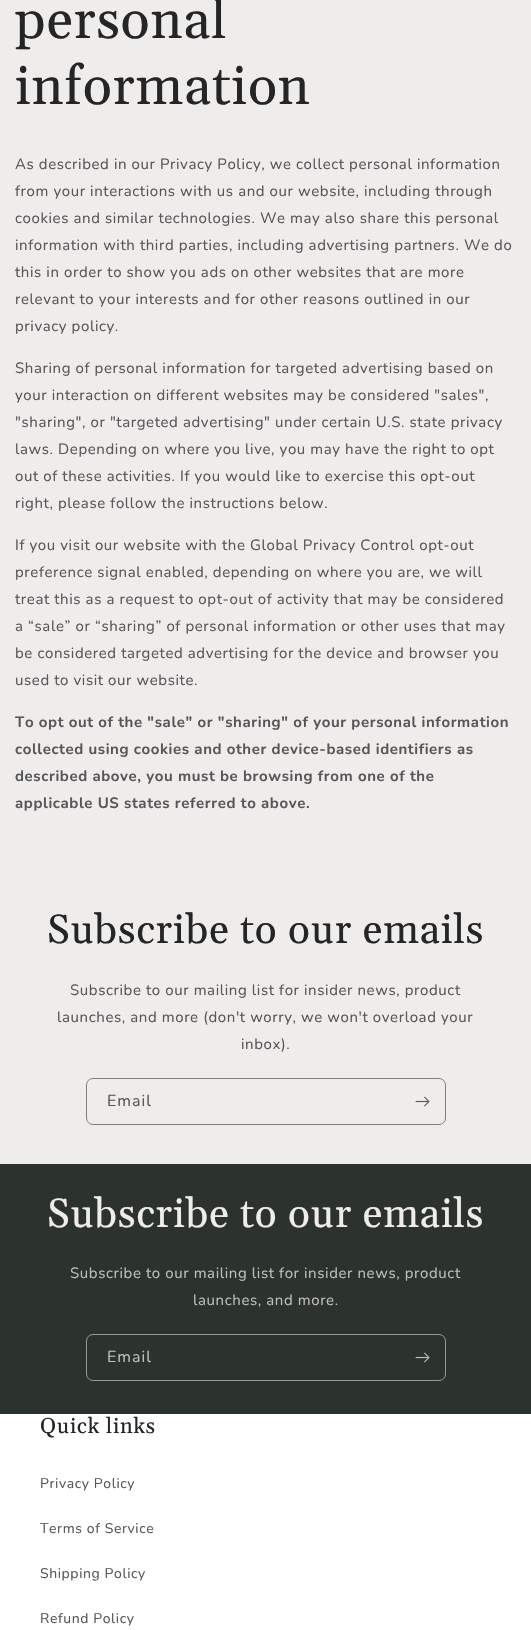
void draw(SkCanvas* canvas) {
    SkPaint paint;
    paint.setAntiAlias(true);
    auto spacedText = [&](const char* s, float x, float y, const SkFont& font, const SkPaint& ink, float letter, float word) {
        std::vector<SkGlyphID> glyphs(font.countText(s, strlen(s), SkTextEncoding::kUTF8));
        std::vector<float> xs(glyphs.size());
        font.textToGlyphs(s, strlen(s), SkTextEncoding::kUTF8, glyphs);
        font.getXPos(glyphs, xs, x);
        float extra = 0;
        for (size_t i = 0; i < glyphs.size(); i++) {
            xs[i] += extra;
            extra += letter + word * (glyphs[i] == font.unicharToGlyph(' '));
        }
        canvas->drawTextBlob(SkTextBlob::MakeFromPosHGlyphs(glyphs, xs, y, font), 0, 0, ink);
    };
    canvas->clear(0xFFEFECEC);
    SkFont font1(fontMgr->matchFamilyStyle("Gelasio", SkFontStyle::Normal()), 54);
    font1.setSubpixel(true);
    paint.setColor(0xFF252525);
    spacedText("personal", 15, 38, font1, paint, 0.8f, 0);
    spacedText("information", 15, 104, font1, paint, 0.8f, 0);
    SkFont font2(fontMgr->matchFamilyStyle("Nunito", SkFontStyle::Normal()), 15);
    font2.setSubpixel(true);
    paint.setColor(0xFF585757);
    spacedText("As described in our Privacy Policy, we collect personal information", 15, 169, font2, paint, 0.6f, 0);
    spacedText("from your interactions with us and our website, including through", 15, 196, font2, paint, 0.6f, 0);
    spacedText("cookies and similar technologies. We may also share this personal", 15, 223, font2, paint, 0.6f, 0);
    spacedText("information with third parties, including advertising partners. We do", 15, 250, font2, paint, 0.6f, 0);
    spacedText("this in order to show you ads on other websites that are more", 15, 277, font2, paint, 0.6f, 0);
    spacedText("relevant to your interests and for other reasons outlined in our", 15, 304, font2, paint, 0.6f, 0);
    spacedText("privacy policy.", 15, 331, font2, paint, 0.6f, 0);
    spacedText("Sharing of personal information for targeted advertising based on", 15, 373, font2, paint, 0.6f, 0);
    spacedText("your interaction on different websites may be considered \"sales\",", 15, 400, font2, paint, 0.6f, 0);
    spacedText("\"sharing\", or \"targeted advertising\" under certain U.S. state privacy", 15, 427, font2, paint, 0.6f, 0);
    spacedText("laws. Depending on where you live, you may have the right to opt", 15, 454, font2, paint, 0.6f, 0);
    spacedText("out of these activities. If you would like to exercise this opt-out", 15, 481, font2, paint, 0.6f, 0);
    spacedText("right, please follow the instructions below.", 15, 508, font2, paint, 0.6f, 0);
    spacedText("If you visit our website with the Global Privacy Control opt-out", 15, 550, font2, paint, 0.6f, 0);
    spacedText("preference signal enabled, depending on where you are, we will", 15, 577, font2, paint, 0.6f, 0);
    spacedText("treat this as a request to opt-out of activity that may be considered", 15, 604, font2, paint, 0.6f, 0);
    spacedText("a “sale” or “sharing” of personal information or other uses that may", 15, 631, font2, paint, 0.6f, 0);
    spacedText("be considered targeted advertising for the device and browser you", 15, 658, font2, paint, 0.6f, 0);
    spacedText("used to visit our website.", 15, 685, font2, paint, 0.6f, 0);
    SkFont font3(fontMgr->matchFamilyStyle("Nunito", SkFontStyle::Bold()), 15);
    font3.setSubpixel(true);
    spacedText("To opt out of the \"sale\" or \"sharing\" of your personal information", 15, 727, font3, paint, 0.6f, 0);
    spacedText("collected using cookies and other device-based identifiers as", 15, 754, font3, paint, 0.6f, 0);
    spacedText("described above, you must be browsing from one of the", 15, 781, font3, paint, 0.6f, 0);
    spacedText("applicable US states referred to above.", 15, 808, font3, paint, 0.6f, 0);
    SkFont font4(fontMgr->matchFamilyStyle("Gelasio", SkFontStyle::Normal()), 40.5f);
    font4.setSubpixel(true);
    paint.setColor(0xFF252525);
    spacedText("Subscribe to our emails", 47, 943, font4, paint, 0.8f, 0);
    paint.setColor(0xFF585757);
    spacedText("Subscribe to our mailing list for insider news, product", 70, 995, font2, paint, 0.6f, 0);
    spacedText("launches, and more (don't worry, we won't overload your", 57, 1022, font2, paint, 0.6f, 0);
    spacedText("inbox).", 241, 1049, font2, paint, 0.6f, 0);
    paint.setStyle(SkPaint::kStroke_Style);
    paint.setStrokeWidth(1);
    paint.setColor(0xFF807F7F);
    canvas->drawRoundRect(SkRect::MakeXYWH(86.5f, 1078.5f, 359, 46), 6.5f, 6.5f, paint);
    SkFont font5(fontMgr->matchFamilyStyle("Nunito", SkFontStyle::Normal()), 16);
    font5.setSubpixel(true);
    paint.setStyle(SkPaint::kFill_Style);
    paint.setColor(0xFF585757);
    spacedText("Email", 107, 1106, font5, paint, 1, 0);
    canvas->drawImageRect(SkImages::DeferredFromEncodedData(SkData::MakeFromFileName("img1.png")), SkRect::MakeXYWH(415, 1096, 15, 11), SkSamplingOptions());
    paint.setColor(0xFF2C332F);
    canvas->drawRect(SkRect::MakeXYWH(0, 1164, 531, 250), paint);
    paint.setColor(0xFFEFECEC);
    spacedText("Subscribe to our emails", 47, 1227, font4, paint, 0.8f, 0);
    paint.setColor(0xFFBEBEBD);
    spacedText("Subscribe to our mailing list for insider news, product", 70, 1278, font2, paint, 0.6f, 0);
    spacedText("launches, and more.", 193, 1305, font2, paint, 0.6f, 0);
    paint.setStyle(SkPaint::kStroke_Style);
    paint.setColor(0xFF979997);
    canvas->drawRoundRect(SkRect::MakeXYWH(86.5f, 1334.5f, 359, 46), 6.5f, 6.5f, paint);
    paint.setStyle(SkPaint::kFill_Style);
    paint.setColor(0xFFBEBEBD);
    spacedText("Email", 107, 1362, font5, paint, 1, 0);
    canvas->drawImageRect(SkImages::DeferredFromEncodedData(SkData::MakeFromFileName("img2.png")), SkRect::MakeXYWH(415, 1352, 15, 11), SkSamplingOptions());
    paint.setColor(0xFFFFFFFF);
    canvas->drawRect(SkRect::MakeXYWH(0, 1414, 531, 216), paint);
    SkFont font6(fontMgr->matchFamilyStyle("Gelasio", SkFontStyle::Normal()), 21.5f);
    font6.setSubpixel(true);
    paint.setColor(0xFF252525);
    spacedText("Quick links", 40, 1433, font6, paint, 0.8f, 0);
    SkFont font7(fontMgr->matchFamilyStyle("Nunito", SkFontStyle::Normal()), 14);
    font7.setSubpixel(true);
    paint.setColor(0xFF585757);
    spacedText("Privacy Policy", 40, 1488, font7, paint, 0.6f, 0);
    spacedText("Terms of Service", 40, 1533, font7, paint, 0.6f, 0);
    spacedText("Shipping Policy", 40, 1578, font7, paint, 0.6f, 0);
    spacedText("Refund Policy", 40, 1623, font7, paint, 0.6f, 0);
}
